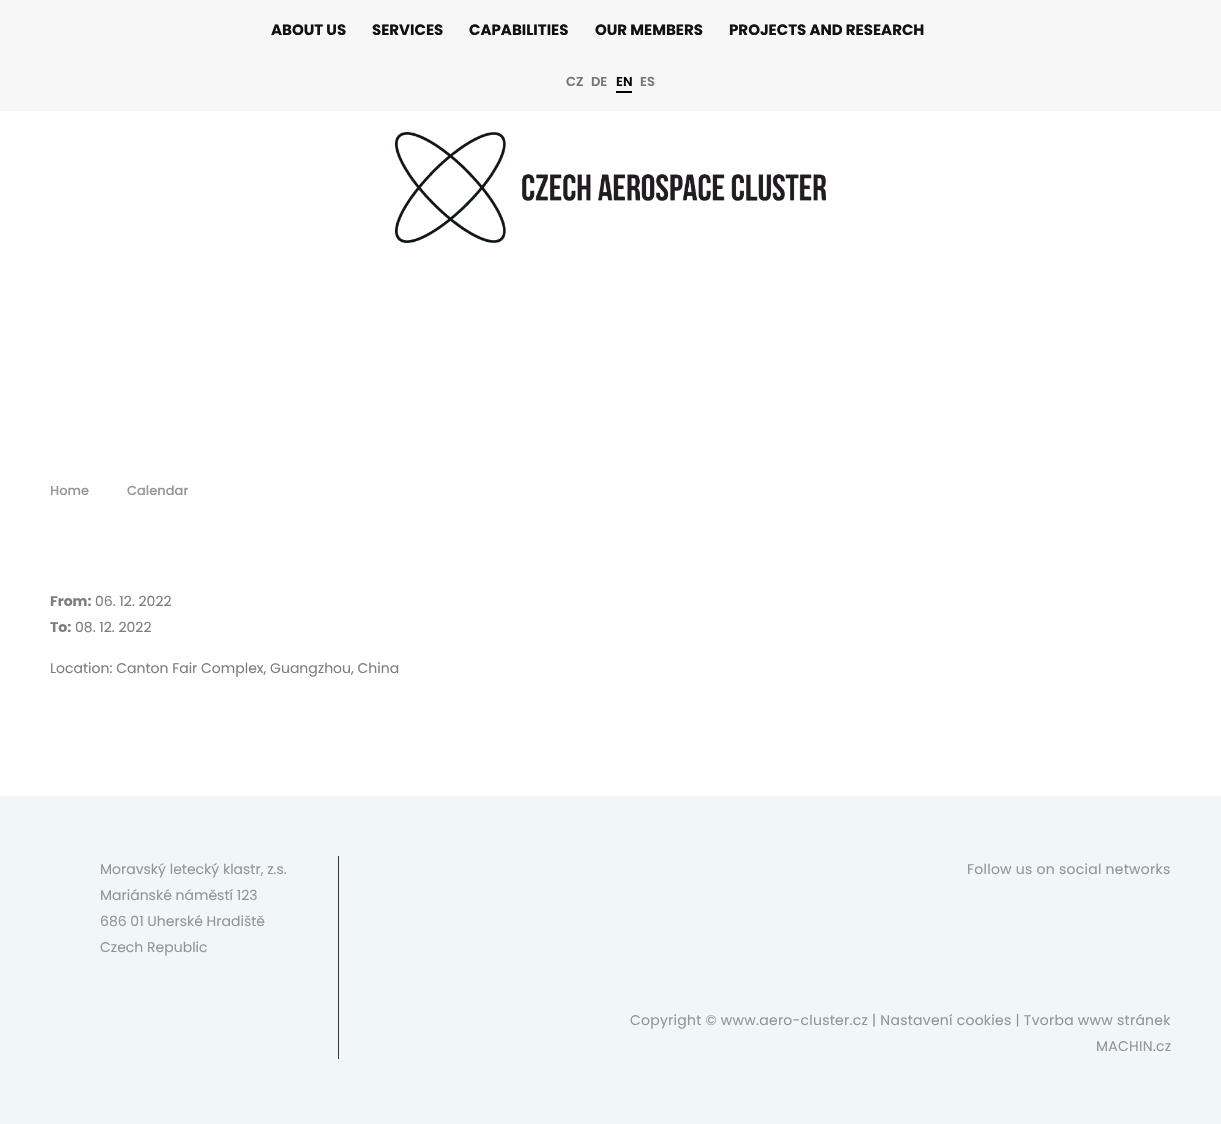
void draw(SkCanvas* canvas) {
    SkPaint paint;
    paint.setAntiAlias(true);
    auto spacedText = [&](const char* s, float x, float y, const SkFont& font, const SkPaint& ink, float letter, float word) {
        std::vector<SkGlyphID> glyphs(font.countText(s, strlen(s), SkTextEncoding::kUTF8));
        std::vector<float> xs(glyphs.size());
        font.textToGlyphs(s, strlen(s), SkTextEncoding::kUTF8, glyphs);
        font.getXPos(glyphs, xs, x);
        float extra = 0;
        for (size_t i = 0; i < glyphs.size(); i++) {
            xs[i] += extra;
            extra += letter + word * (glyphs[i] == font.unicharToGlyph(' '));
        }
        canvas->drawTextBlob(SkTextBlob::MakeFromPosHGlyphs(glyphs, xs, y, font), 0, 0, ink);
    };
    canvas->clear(0xFFF1F7F9);
    paint.setColor(0xFFFFFFFF);
    canvas->drawRect(SkRect::MakeXYWH(0, 111, 1221, 685), paint);
    paint.setColor(0xFFF7F7F7);
    canvas->drawRect(SkRect::MakeXYWH(0, 0, 1221, 111), paint);
    SkFont font1(fontMgr->matchFamilyStyle("Poppins", SkFontStyle::Bold()), 15);
    font1.setSubpixel(true);
    paint.setColor(0xFF111111);
    canvas->drawString("ABOUT US", 271, 35, font1, paint);
    canvas->drawString("SERVICES", 372, 35, font1, paint);
    canvas->drawString("CAPABILITIES", 469, 35, font1, paint);
    canvas->drawString("OUR MEMBERS", 595, 35, font1, paint);
    canvas->drawString("PROJECTS AND RESEARCH", 729, 35, font1, paint);
    SkFont font2(fontMgr->matchFamilyStyle("Poppins", SkFontStyle(600, SkFontStyle::kNormal_Width, SkFontStyle::kUpright_Slant)), 13);
    font2.setSubpixel(true);
    paint.setColor(0xFF767676);
    canvas->drawString("CZ", 566, 86, font2, paint);
    canvas->drawString("DE", 591, 86, font2, paint);
    paint.setColor(0xFF000000);
    canvas->drawString("EN", 616, 86, font2, paint);
    canvas->drawRect(SkRect::MakeXYWH(616, 91, 16, 2), paint);
    paint.setColor(0xFF767676);
    canvas->drawString("ES", 640, 86, font2, paint);
    canvas->drawImageRect(SkImages::DeferredFromEncodedData(SkData::MakeFromFileName("img1.png")), SkRect::MakeXYWH(395, 132, 431, 111), SkSamplingOptions());
    SkFont font3(fontMgr->matchFamilyStyle("Poppins", SkFontStyle(500, SkFontStyle::kNormal_Width, SkFontStyle::kUpright_Slant)), 13);
    font3.setSubpixel(true);
    paint.setColor(0xFF959595);
    canvas->drawString("Home", 50, 495, font3, paint);
    canvas->drawString("Calendar", 127, 495, font3, paint);
    SkFont font4(fontMgr->matchFamilyStyle("Poppins", SkFontStyle::Bold()), 14);
    font4.setSubpixel(true);
    paint.setColor(0xFF7E7E7E);
    canvas->drawString("From:", 50, 606, font4, paint);
    SkFont font5(fontMgr->matchFamilyStyle("Poppins", SkFontStyle::Normal()), 14);
    font5.setSubpixel(true);
    canvas->drawString("06. 12. 2022", 95, 606, font5, paint);
    canvas->drawString("To:", 50, 632, font4, paint);
    canvas->drawString("08. 12. 2022", 75, 632, font5, paint);
    canvas->drawString("Location: Canton Fair Complex, Guangzhou, China", 50, 673, font5, paint);
    paint.setColor(0xFF959595);
    canvas->drawString("Moravský letecký klastr, z.s.", 100, 874, font5, paint);
    canvas->drawString("Mariánské náměstí 123", 100, 900, font5, paint);
    canvas->drawString("686 01 Uherské Hradiště", 100, 926, font5, paint);
    canvas->drawString("Czech Republic", 100, 952, font5, paint);
    paint.setColor(0xFF353637);
    canvas->drawRect(SkRect::MakeXYWH(338, 856, 1, 203), paint);
    paint.setColor(0xFF959595);
    spacedText("Follow us on social networks", 967, 874, font5, paint, 0.25f, 0);
    spacedText("Copyright © www.aero-cluster.cz | Nastavení cookies | Tvorba www stránek", 630, 1025, font5, paint, 0.25f, 0);
    spacedText("MACHIN.cz", 1096, 1051, font5, paint, 0.25f, 0);
}
